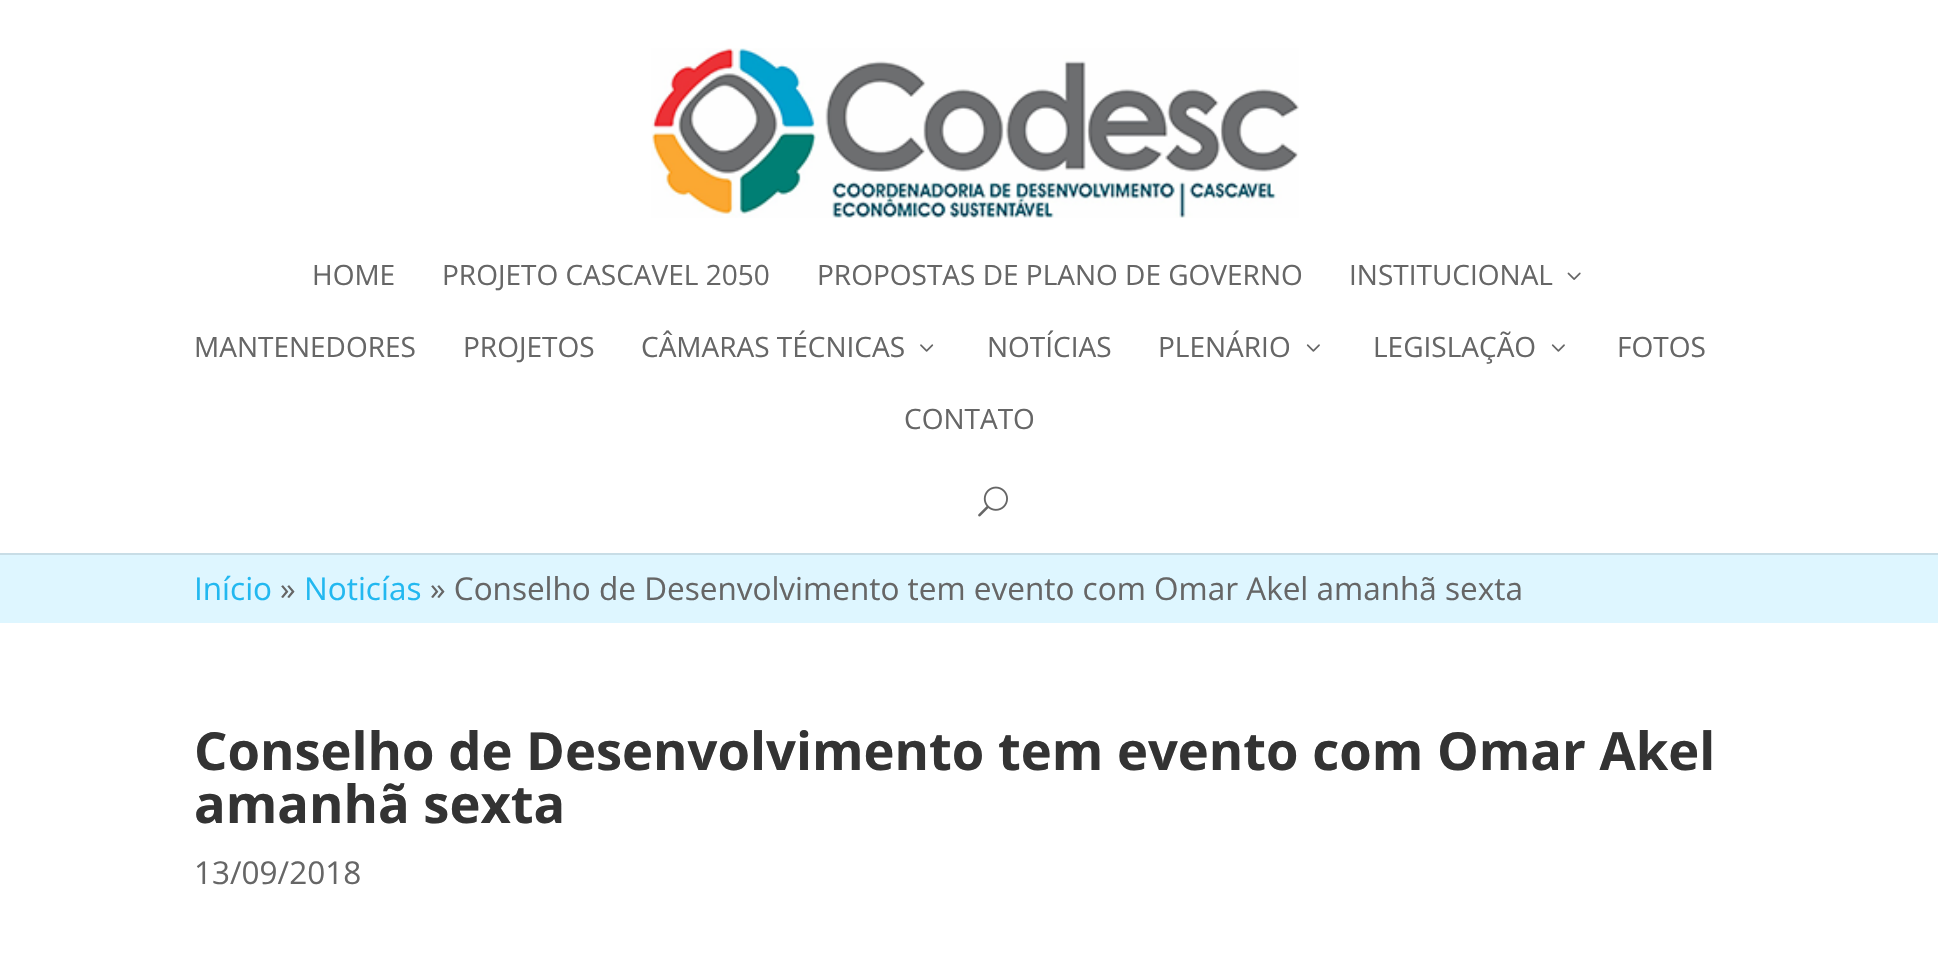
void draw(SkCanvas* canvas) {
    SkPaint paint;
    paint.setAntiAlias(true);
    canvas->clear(0xFFFFFFFF);
    paint.setColor(0xFFC8DDE6);
    canvas->drawRect(SkRect::MakeXYWH(0, 553, 1938, 2), paint);
    canvas->drawImageRect(SkImages::DeferredFromEncodedData(SkData::MakeFromFileName("img1.png")), SkRect::MakeXYWH(651, 48, 648, 170), SkSamplingOptions());
    SkFont font1(fontMgr->matchFamilyStyle("Open Sans", SkFontStyle::Normal()), 28);
    font1.setSubpixel(true);
    paint.setColor(0xFF666666);
    canvas->drawString("HOME", 312, 285, font1, paint);
    canvas->drawString("PROJETO CASCAVEL 2050", 442, 285, font1, paint);
    canvas->drawString("PROPOSTAS DE PLANO DE GOVERNO", 817, 285, font1, paint);
    canvas->drawString("INSTITUCIONAL", 1349, 285, font1, paint);
    canvas->drawImageRect(SkImages::DeferredFromEncodedData(SkData::MakeFromFileName("img2.png")), SkRect::MakeXYWH(1567, 272, 14, 8), SkSamplingOptions());
    canvas->drawString("MANTENEDORES", 194, 357, font1, paint);
    canvas->drawString("PROJETOS", 463, 357, font1, paint);
    canvas->drawString("CÂMARAS TÉCNICAS", 641, 357, font1, paint);
    canvas->drawImageRect(SkImages::DeferredFromEncodedData(SkData::MakeFromFileName("img3.png")), SkRect::MakeXYWH(920, 344, 14, 8), SkSamplingOptions());
    canvas->drawString("NOTÍCIAS", 987, 357, font1, paint);
    canvas->drawString("PLENÁRIO", 1158, 357, font1, paint);
    canvas->drawImageRect(SkImages::DeferredFromEncodedData(SkData::MakeFromFileName("img4.png")), SkRect::MakeXYWH(1306, 344, 14, 8), SkSamplingOptions());
    canvas->drawString("LEGISLAÇÃO", 1373, 357, font1, paint);
    canvas->drawImageRect(SkImages::DeferredFromEncodedData(SkData::MakeFromFileName("img4.png")), SkRect::MakeXYWH(1551, 344, 14, 8), SkSamplingOptions());
    canvas->drawString("FOTOS", 1617, 357, font1, paint);
    canvas->drawString("CONTATO", 904, 429, font1, paint);
    canvas->drawImageRect(SkImages::DeferredFromEncodedData(SkData::MakeFromFileName("img5.png")), SkRect::MakeXYWH(978, 486, 30, 31), SkSamplingOptions());
    paint.setColor(0xFFDEF6FF);
    canvas->drawRect(SkRect::MakeXYWH(0, 555, 1938, 68), paint);
    SkFont font2(fontMgr->matchFamilyStyle("Open Sans", SkFontStyle::Normal()), 31.5f);
    font2.setSubpixel(true);
    paint.setColor(0xFF22B8F0);
    canvas->drawString("Início", 194, 600, font2, paint);
    paint.setColor(0xFF666666);
    canvas->drawString("»", 280, 600, font2, paint);
    paint.setColor(0xFF22B8F0);
    canvas->drawString("Noticías", 304, 600, font2, paint);
    paint.setColor(0xFF666666);
    canvas->drawString("» Conselho de Desenvolvimento tem evento com Omar Akel amanhã sexta", 430, 600, font2, paint);
    SkFont font3(fontMgr->matchFamilyStyle("Open Sans", SkFontStyle::Bold()), 52.5f);
    font3.setSubpixel(true);
    paint.setColor(0xFF333333);
    canvas->drawString("Conselho de Desenvolvimento tem evento com Omar Akel", 194, 770, font3, paint);
    canvas->drawString("amanhã sexta", 194, 823, font3, paint);
    paint.setColor(0xFF666666);
    canvas->drawString("13/09/2018", 194, 884, font2, paint);
}
